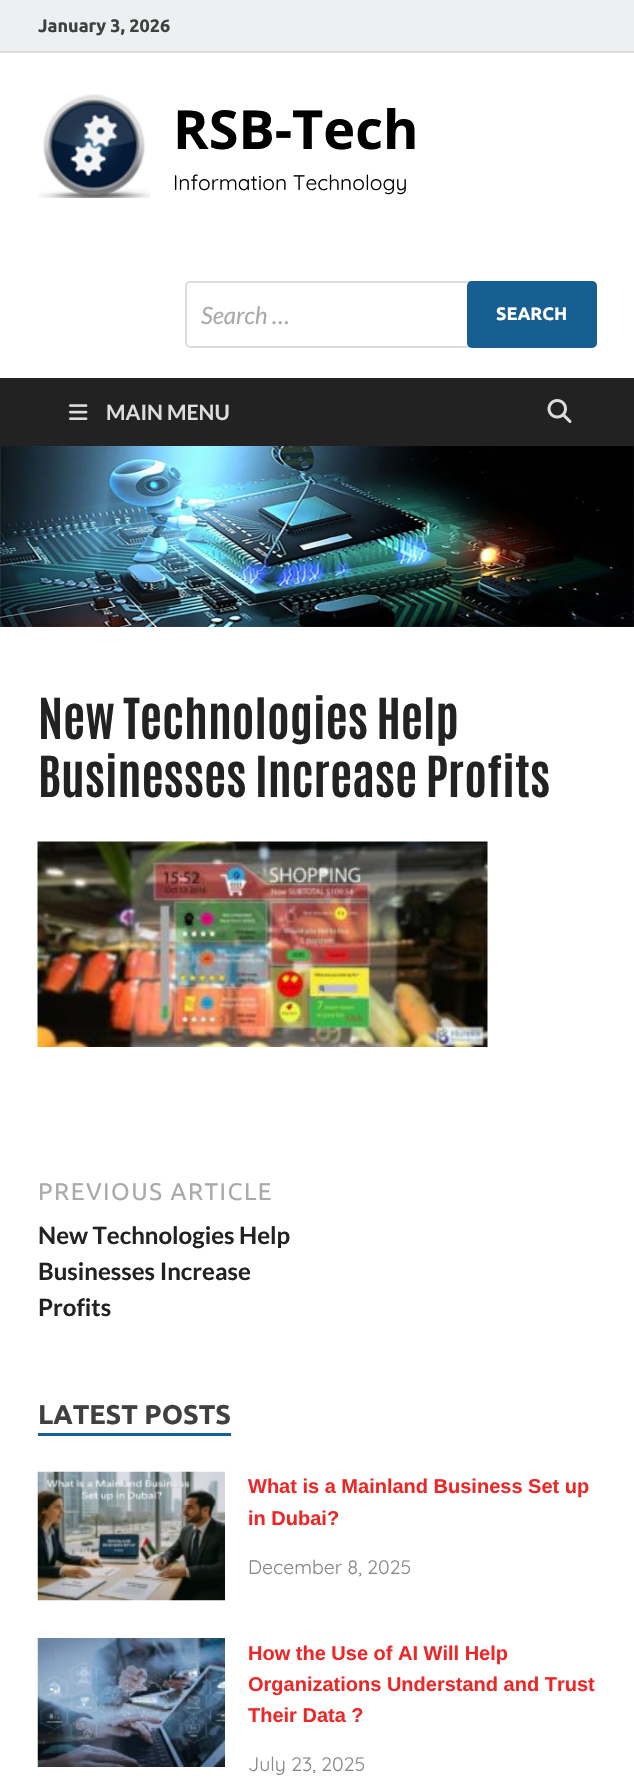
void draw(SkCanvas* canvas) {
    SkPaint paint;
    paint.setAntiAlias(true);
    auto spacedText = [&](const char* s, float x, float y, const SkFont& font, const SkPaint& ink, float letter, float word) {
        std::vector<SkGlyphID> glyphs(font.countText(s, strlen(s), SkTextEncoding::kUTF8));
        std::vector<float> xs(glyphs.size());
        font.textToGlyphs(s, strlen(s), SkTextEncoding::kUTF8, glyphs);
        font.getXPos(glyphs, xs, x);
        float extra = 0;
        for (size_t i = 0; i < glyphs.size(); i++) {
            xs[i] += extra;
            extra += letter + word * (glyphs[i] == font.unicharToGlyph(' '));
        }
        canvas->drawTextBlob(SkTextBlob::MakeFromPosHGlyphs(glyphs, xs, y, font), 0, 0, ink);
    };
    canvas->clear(0xFFFFFFFF);
    paint.setColor(0xFFECF0F1);
    canvas->drawRect(SkRect::MakeXYWH(0, 0, 634, 51), paint);
    paint.setColor(0xFFDDDDDD);
    canvas->drawRect(SkRect::MakeXYWH(0, 51, 634, 2), paint);
    SkFont font1(fontMgr->matchFamilyStyle("Ubuntu", SkFontStyle::Bold()), 18);
    font1.setSubpixel(true);
    paint.setColor(0xFF404040);
    canvas->drawString("January 3, 2026", 38, 32, font1, paint);
    canvas->drawImageRect(SkImages::DeferredFromEncodedData(SkData::MakeFromFileName("img1.png")), SkRect::MakeXYWH(38, 94, 112, 104), SkSamplingOptions());
    SkFont font2(fontMgr->matchFamilyStyle("Open Sans", SkFontStyle::Bold()), 54);
    font2.setSubpixel(true);
    paint.setColor(0xFF000000);
    canvas->drawString("RSB-Tech", 173, 149, font2, paint);
    SkFont font3(fontMgr->matchFamilyStyle("Quicksand", SkFontStyle(300, SkFontStyle::kNormal_Width, SkFontStyle::kUpright_Slant)), 21);
    font3.setSubpixel(true);
    canvas->drawString("Information Technology", 173, 190, font3, paint);
    paint.setStyle(SkPaint::kStroke_Style);
    paint.setStrokeWidth(2);
    paint.setColor(0xFFDDDDDD);
    canvas->drawRoundRect(SkRect::MakeXYWH(186, 282, 410, 65), 4, 4, paint);
    SkFont font4(fontMgr->matchFamilyStyle("Lato", SkFontStyle::Italic()), 24);
    font4.setSubpixel(true);
    paint.setStyle(SkPaint::kFill_Style);
    paint.setColor(0xFFAAAAAA);
    canvas->drawString("Search …", 201, 324, font4, paint);
    paint.setColor(0xFF175E93);
    canvas->drawRoundRect(SkRect::MakeXYWH(467, 281, 130, 67), 5, 5, paint);
    paint.setColor(0xFFFFFFFF);
    canvas->drawString("SEARCH", 496, 320, font1, paint);
    paint.setColor(0xFF222222);
    canvas->drawRect(SkRect::MakeXYWH(0, 378, 634, 68), paint);
    canvas->drawImageRect(SkImages::DeferredFromEncodedData(SkData::MakeFromFileName("img2.png")), SkRect::MakeXYWH(69, 404, 19, 16), SkSamplingOptions());
    SkFont font5(fontMgr->matchFamilyStyle("Lato", SkFontStyle::Bold()), 21);
    font5.setSubpixel(true);
    paint.setColor(0xFFDDDDDD);
    canvas->drawString("MAIN MENU", 106, 420, font5, paint);
    canvas->drawImageRect(SkImages::DeferredFromEncodedData(SkData::MakeFromFileName("img3.png")), SkRect::MakeXYWH(547, 399, 25, 24), SkSamplingOptions());
    canvas->drawImageRect(SkImages::DeferredFromEncodedData(SkData::MakeFromFileName("img4.png")), SkRect::MakeXYWH(0, 446, 634, 181), SkSamplingOptions());
    SkFont font6(fontMgr->matchFamilyStyle("Antonio", SkFontStyle::Bold()), 48);
    font6.setSubpixel(true);
    paint.setColor(0xFF222222);
    canvas->drawString("New Technologies Help", 38, 739, font6, paint);
    canvas->drawString("Businesses Increase Profits", 38, 797, font6, paint);
    canvas->drawImageRect(SkImages::DeferredFromEncodedData(SkData::MakeFromFileName("img5.png")), SkRect::MakeXYWH(37, 841, 451, 206), SkSamplingOptions());
    SkFont font7(fontMgr->matchFamilyStyle("Ubuntu", SkFontStyle::Normal()), 24);
    font7.setSubpixel(true);
    paint.setColor(0xFFAAAAAA);
    spacedText("PREVIOUS ARTICLE", 38, 1200, font7, paint, 1.5f, 0);
    SkFont font8(fontMgr->matchFamilyStyle("Lato", SkFontStyle::Bold()), 24);
    font8.setSubpixel(true);
    paint.setColor(0xFF222222);
    canvas->drawString("New Technologies Help", 38, 1244, font8, paint);
    canvas->drawString("Businesses Increase", 38, 1280, font8, paint);
    canvas->drawString("Profits", 38, 1316, font8, paint);
    paint.setColor(0xFF175E93);
    canvas->drawRect(SkRect::MakeXYWH(38, 1433, 193, 3), paint);
    SkFont font9(fontMgr->matchFamilyStyle("Ubuntu", SkFontStyle::Bold()), 27);
    font9.setSubpixel(true);
    paint.setColor(0xFF404040);
    canvas->drawString("LATEST POSTS", 38, 1424, font9, paint);
    canvas->drawImageRect(SkImages::DeferredFromEncodedData(SkData::MakeFromFileName("img6.png")), SkRect::MakeXYWH(37, 1471, 188, 130), SkSamplingOptions());
    SkFont font10(fontMgr->matchFamilyStyle("Liberation Sans", SkFontStyle::Bold()), 20);
    font10.setSubpixel(true);
    paint.setColor(0xFFEE2626);
    canvas->drawString("What is a Mainland Business Set up", 248, 1493, font10, paint);
    canvas->drawString("in Dubai?", 248, 1525, font10, paint);
    SkFont font11(fontMgr->matchFamilyStyle("Quicksand", SkFontStyle(300, SkFontStyle::kNormal_Width, SkFontStyle::kUpright_Slant)), 19.5f);
    font11.setSubpixel(true);
    paint.setColor(0xFF888888);
    canvas->drawString("December 8, 2025", 248, 1574, font11, paint);
    canvas->drawImageRect(SkImages::DeferredFromEncodedData(SkData::MakeFromFileName("img7.png")), SkRect::MakeXYWH(37, 1638, 188, 129), SkSamplingOptions());
    paint.setColor(0xFFEE2626);
    canvas->drawString("How the Use of AI Will Help", 248, 1660, font10, paint);
    canvas->drawString("Organizations Understand and Trust", 248, 1691, font10, paint);
    canvas->save();
    canvas->clipRect(SkRect::MakeXYWH(248, 1638, 349, 141));
    canvas->drawString("Their Data ?", 248, 1722, font10, paint);
    canvas->restore();
    paint.setColor(0xFF888888);
    canvas->drawString("July 23, 2025", 248, 1771, font11, paint);
}
